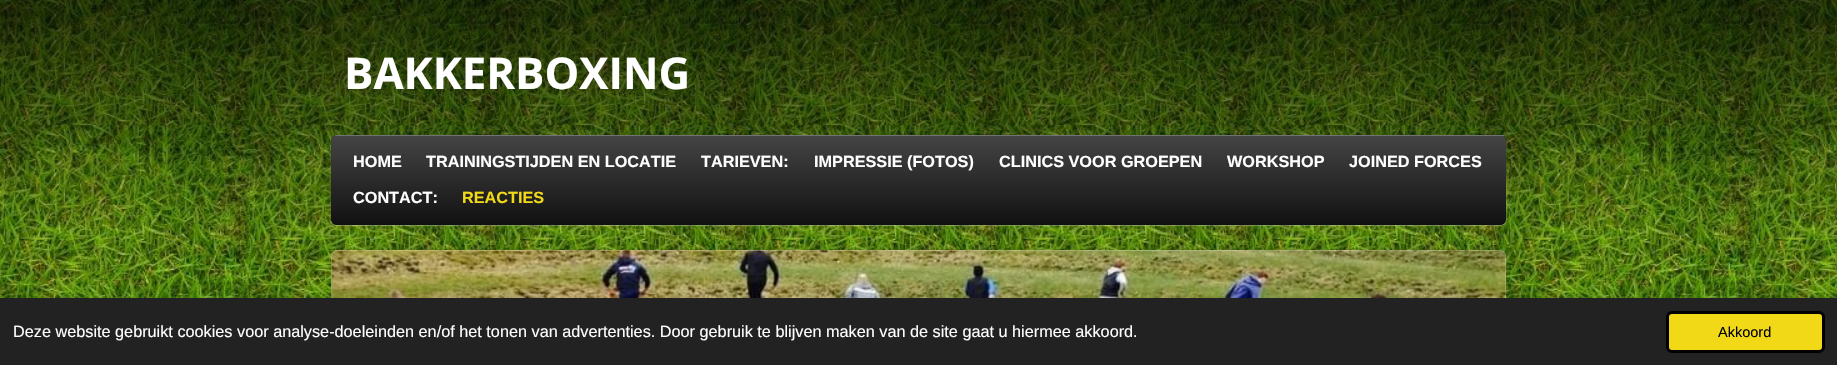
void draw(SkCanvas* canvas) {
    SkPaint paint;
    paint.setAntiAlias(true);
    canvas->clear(0xFFFFFFFF);
    canvas->drawImageRect(SkImages::DeferredFromEncodedData(SkData::MakeFromFileName("img1.png")), SkRect::MakeXYWH(0, 0, 1837, 298), SkSamplingOptions());
    paint.setColor(0x99000000);
    canvas->drawRect(SkRect::MakeXYWH(0, 0, 1837, 25), paint);
    SkFont font1(fontMgr->matchFamilyStyle("Open Sans", SkFontStyle::Bold()), 43.75f);
    font1.setSubpixel(true);
    paint.setColor(0xFFFFFFFF);
    canvas->drawString("BAKKERBOXING", 344, 89, font1, paint);
    paint.setColor(0x4DFFFFFF);
    paint.setMaskFilter(SkMaskFilter::MakeBlur(kNormal_SkBlurStyle, 0.5f));
    canvas->drawRoundRect(SkRect::MakeXYWH(331, 136, 1175, 90), 6, 6, paint);
    paint.setMaskFilter(nullptr);
    paint.setColor(0xFF111111);
    canvas->drawRoundRect(SkRect::MakeXYWH(331, 135, 1175, 90), 6, 6, paint);
    canvas->save();
    canvas->clipPath(SkPathBuilder().moveTo(337, 135).lineTo(1500, 135).cubicTo(1503.5f, 135, 1506, 137.5f, 1506, 141).lineTo(1506, 219).cubicTo(1506, 222.5f, 1503.5f, 225, 1500, 225).lineTo(337, 225).cubicTo(333.5f, 225, 331, 222.5f, 331, 219).lineTo(331, 141).cubicTo(331, 137.5f, 333.5f, 135, 337, 135).close().detach(), true);
    {
        const SkColor colors[] = {0xFF111111, 0xFF444444};
        const float stops[] = {0, 1};
        const SkPoint ends[] = {{919, 136}, {919, 48}};
        paint.setShader(SkGradientShader::MakeLinear(ends, colors, stops, 2, SkTileMode::kClamp));
        paint.setAlpha(255);
    }
    canvas->drawRect(SkRect::MakeXYWH(331, 135, 4, 1), paint);
    {
        const SkColor colors[] = {0xFF111111, 0xFF444444};
        const float stops[] = {0, 1};
        const SkPoint ends[] = {{919, 225}, {919, 136}};
        paint.setShader(SkGradientShader::MakeLinear(ends, colors, stops, 2, SkTileMode::kClamp));
        paint.setAlpha(255);
    }
    canvas->drawPath(SkPathBuilder().moveTo(331, 136).lineTo(1506, 136).lineTo(1506, 219).cubicTo(1506, 222.5f, 1503.5f, 225, 1500, 225).lineTo(337, 225).cubicTo(333.5f, 225, 331, 222.5f, 331, 219).close().detach(), paint);
    canvas->restore();
    paint.setShader(nullptr);
    paint.setColor(0xFF727272);
    canvas->drawRect(SkRect::MakeXYWH(335, 135, 1169, 1), paint);
    SkFont font2(fontMgr->matchFamilyStyle("Liberation Sans", SkFontStyle::Bold()), 16.25f);
    font2.setSubpixel(true);
    paint.setColor(0xFFFFFFFF);
    canvas->drawString("HOME", 353, 167, font2, paint);
    canvas->drawString("TRAININGSTIJDEN EN LOCATIE", 426, 167, font2, paint);
    canvas->drawString("TARIEVEN:", 701, 167, font2, paint);
    canvas->drawString("IMPRESSIE (FOTOS)", 814, 167, font2, paint);
    canvas->drawString("CLINICS VOOR GROEPEN", 999, 167, font2, paint);
    canvas->drawString("WORKSHOP", 1227, 167, font2, paint);
    canvas->drawString("JOINED FORCES", 1349, 167, font2, paint);
    canvas->drawString("CONTACT:", 353, 203, font2, paint);
    paint.setColor(0xFFF2D918);
    canvas->drawString("REACTIES", 462, 203, font2, paint);
    canvas->drawImageRect(SkImages::DeferredFromEncodedData(SkData::MakeFromFileName("img2.png")), SkRect::MakeXYWH(331, 250, 1176, 48), SkSamplingOptions());
    paint.setStyle(SkPaint::kStroke_Style);
    paint.setStrokeWidth(1);
    paint.setColor(0x33FFFFFF);
    canvas->drawRoundRect(SkRect::MakeXYWH(331.5f, 250.5f, 1174, 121), 5.5f, 5.5f, paint);
    paint.setStyle(SkPaint::kFill_Style);
    paint.setColor(0xFF222222);
    canvas->drawRect(SkRect::MakeXYWH(0, 298, 1837, 67), paint);
    SkFont font3(fontMgr->matchFamilyStyle("Liberation Sans", SkFontStyle::Normal()), 16.25f);
    font3.setSubpixel(true);
    paint.setColor(0xFFFFFFFF);
    canvas->drawString("Deze website gebruikt cookies voor analyse-doeleinden en/of het tonen van advertenties. Door gebruik te blijven maken van de site gaat u hiermee akkoord.", 13, 337, font3, paint);
    paint.setColor(0xFFF2D918);
    canvas->drawRoundRect(SkRect::MakeXYWH(1667.5f, 312.5f, 156, 39), 4.5f, 4.5f, paint);
    paint.setStyle(SkPaint::kStroke_Style);
    paint.setStrokeWidth(3);
    paint.setColor(0xFF000000);
    canvas->drawRoundRect(SkRect::MakeXYWH(1667.5f, 312.5f, 156, 39), 4.5f, 4.5f, paint);
    SkFont font4(fontMgr->matchFamilyStyle("Liberation Sans", SkFontStyle::Normal()), 14.5f);
    font4.setSubpixel(true);
    paint.setStyle(SkPaint::kFill_Style);
    canvas->drawString("Akkoord", 1718, 337, font4, paint);
}
